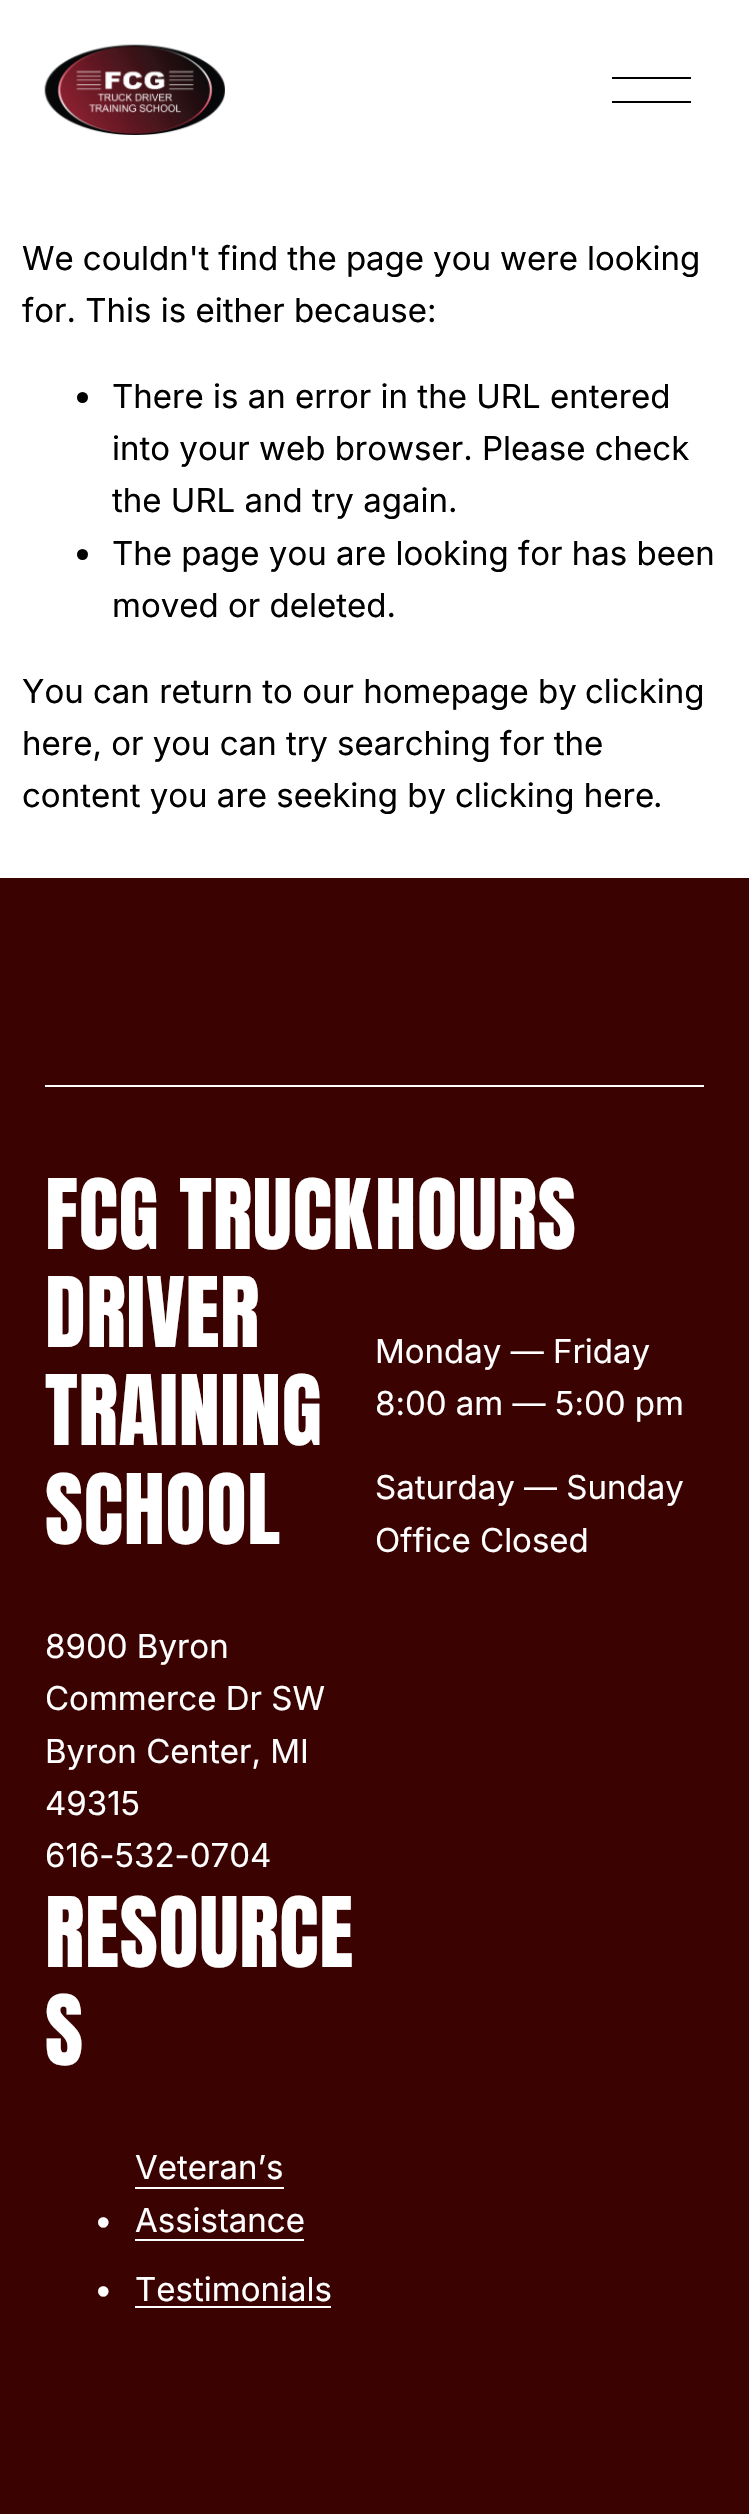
void draw(SkCanvas* canvas) {
    SkPaint paint;
    paint.setAntiAlias(true);
    auto spacedText = [&](const char* s, float x, float y, const SkFont& font, const SkPaint& ink, float letter, float word) {
        std::vector<SkGlyphID> glyphs(font.countText(s, strlen(s), SkTextEncoding::kUTF8));
        std::vector<float> xs(glyphs.size());
        font.textToGlyphs(s, strlen(s), SkTextEncoding::kUTF8, glyphs);
        font.getXPos(glyphs, xs, x);
        float extra = 0;
        for (size_t i = 0; i < glyphs.size(); i++) {
            xs[i] += extra;
            extra += letter + word * (glyphs[i] == font.unicharToGlyph(' '));
        }
        canvas->drawTextBlob(SkTextBlob::MakeFromPosHGlyphs(glyphs, xs, y, font), 0, 0, ink);
    };
    canvas->clear(0xFFFFFFFF);
    canvas->drawImageRect(SkImages::DeferredFromEncodedData(SkData::MakeFromFileName("img1.png")), SkRect::MakeXYWH(44, 44, 181, 91), SkSamplingOptions());
    paint.setColor(0xFF000000);
    canvas->drawRect(SkRect::MakeXYWH(612, 77, 79, 2), paint);
    canvas->drawRect(SkRect::MakeXYWH(612, 101, 79, 2), paint);
    SkFont font1(fontMgr->matchFamilyStyle("Inter", SkFontStyle::Normal()), 33);
    font1.setSubpixel(true);
    spacedText("We couldn't find the page you were looking", 22, 270, font1, paint, 0, -0.25f);
    canvas->drawString("for. This is either because:", 22, 322, font1, paint);
    canvas->drawCircle(82.5f, 397.5f, 5.5f, paint);
    canvas->drawString("There is an error in the URL entered", 112, 408, font1, paint);
    canvas->drawString("into your web browser. Please check", 112, 460, font1, paint);
    canvas->drawString("the URL and try again.", 112, 512, font1, paint);
    canvas->drawCircle(82.5f, 554.5f, 5.5f, paint);
    canvas->drawString("The page you are looking for has been", 112, 565, font1, paint);
    canvas->drawString("moved or deleted.", 112, 617, font1, paint);
    canvas->drawString("You can return to our homepage by", 22, 703, font1, paint);
    canvas->drawString("clicking", 585, 703, font1, paint);
    canvas->drawString("here, or you can try searching for the", 22, 755, font1, paint);
    canvas->drawString("content you are seeking by", 22, 807, font1, paint);
    canvas->drawString("clicking here", 455, 807, font1, paint);
    canvas->drawString(".", 653, 807, font1, paint);
    paint.setColor(0xFF3A0200);
    canvas->drawRect(SkRect::MakeXYWH(0, 878, 749, 1636), paint);
    paint.setColor(0xFFFFFFFF);
    canvas->drawRect(SkRect::MakeXYWH(45, 1085, 659, 2), paint);
    SkFont font2(fontMgr->matchFamilyStyle("Anton", SkFontStyle::Normal()), 82.5f);
    font2.setSubpixel(true);
    spacedText("FCG TRUCK", 45, 1249, font2, paint, 0.75f, 0);
    spacedText("DRIVER", 45, 1347, font2, paint, 0.75f, 0);
    spacedText("TRAINING", 45, 1445, font2, paint, 0.75f, 0);
    spacedText("SCHOOL", 45, 1544, font2, paint, 0.75f, 0);
    canvas->drawString("8900 Byron", 45, 1658, font1, paint);
    canvas->drawString("Commerce Dr SW", 45, 1710, font1, paint);
    canvas->drawString("Byron Center, MI", 45, 1763, font1, paint);
    canvas->drawString("49315", 45, 1815, font1, paint);
    canvas->drawString("616-532-0704", 45, 1867, font1, paint);
    spacedText("HOURS", 375, 1249, font2, paint, 0.75f, 0);
    canvas->drawString("Monday — Friday", 375, 1363, font1, paint);
    canvas->drawString("8:00 am — 5:00 pm", 375, 1415, font1, paint);
    canvas->drawString("Saturday — Sunday", 375, 1499, font1, paint);
    canvas->drawString("Office Closed", 375, 1552, font1, paint);
    spacedText("RESOURCE", 45, 1967, font2, paint, 0.75f, 0);
    spacedText("S", 45, 2065, font2, paint, 0.75f, 0);
    canvas->drawString("•", 94, 2232, font1, paint);
    canvas->drawString("Veteran’s", 135, 2179, font1, paint);
    canvas->drawRect(SkRect::MakeXYWH(135, 2187, 149, 2), paint);
    canvas->drawString("Assistance", 135, 2232, font1, paint);
    canvas->drawRect(SkRect::MakeXYWH(135, 2239, 169, 2), paint);
    canvas->drawString("•", 94, 2301, font1, paint);
    canvas->drawString("Testimonials", 135, 2301, font1, paint);
    canvas->drawRect(SkRect::MakeXYWH(135, 2306, 196, 2), paint);
}
